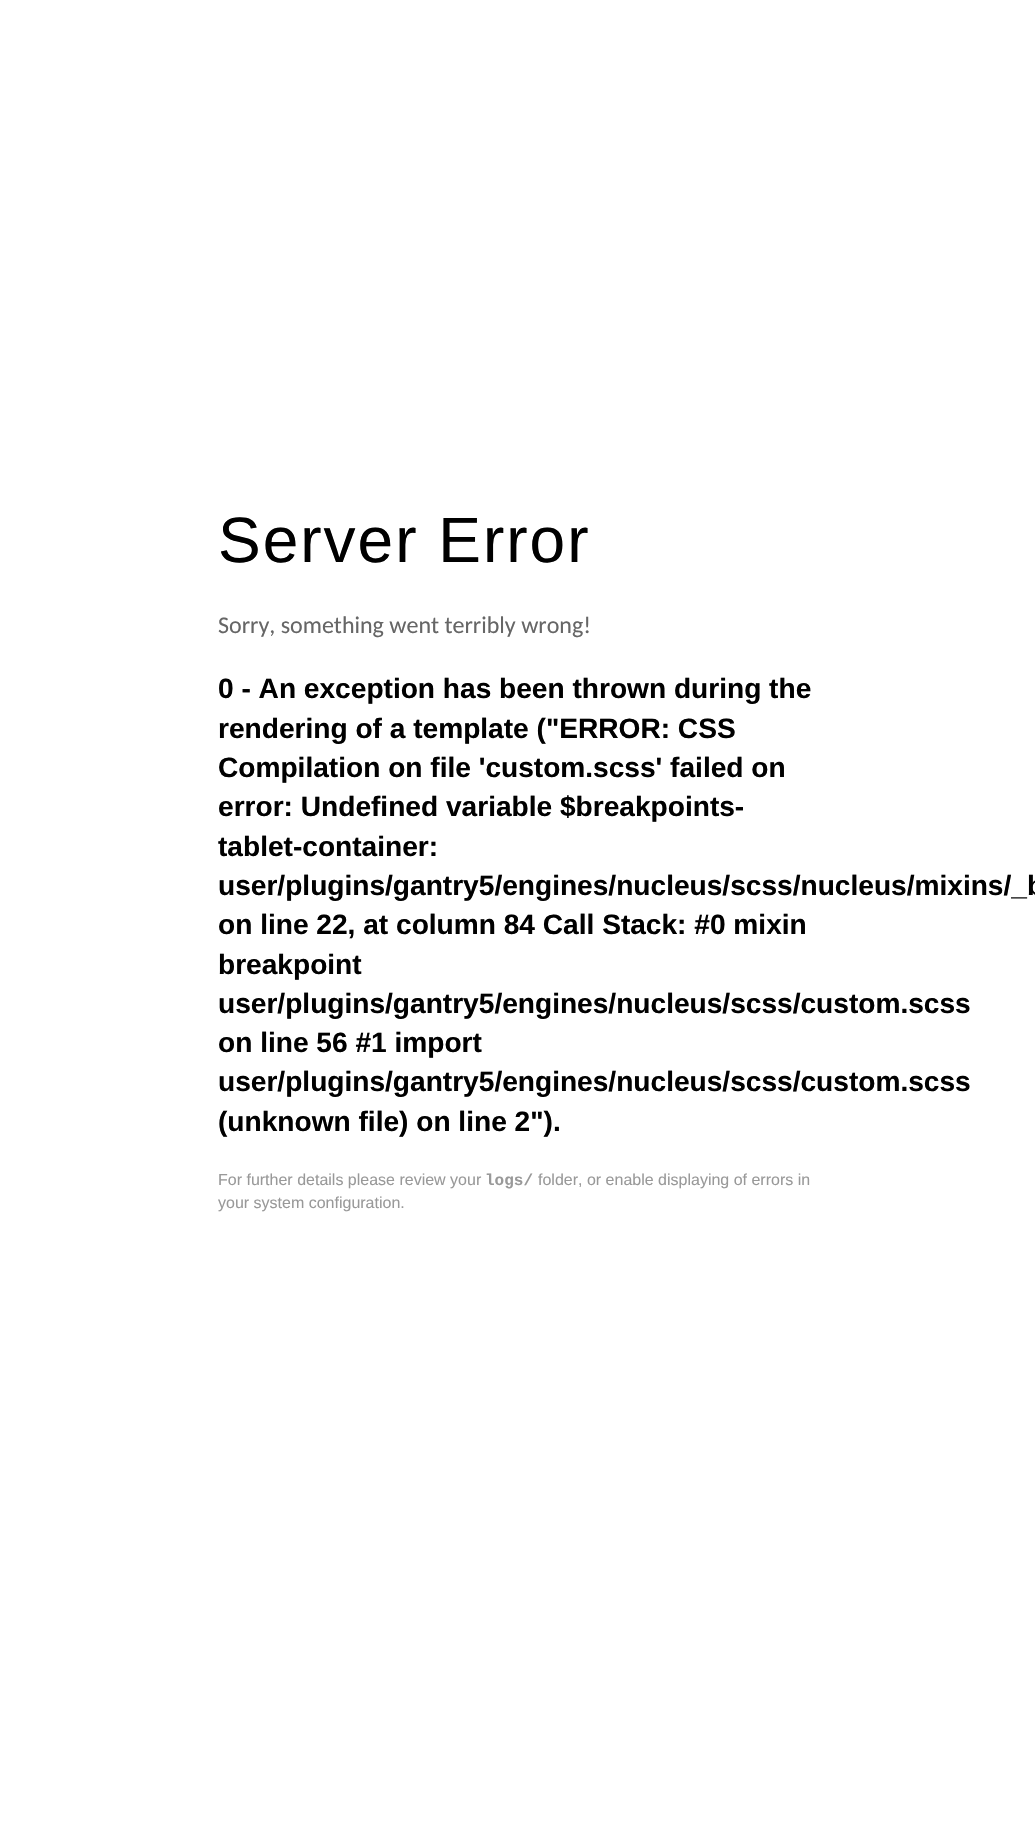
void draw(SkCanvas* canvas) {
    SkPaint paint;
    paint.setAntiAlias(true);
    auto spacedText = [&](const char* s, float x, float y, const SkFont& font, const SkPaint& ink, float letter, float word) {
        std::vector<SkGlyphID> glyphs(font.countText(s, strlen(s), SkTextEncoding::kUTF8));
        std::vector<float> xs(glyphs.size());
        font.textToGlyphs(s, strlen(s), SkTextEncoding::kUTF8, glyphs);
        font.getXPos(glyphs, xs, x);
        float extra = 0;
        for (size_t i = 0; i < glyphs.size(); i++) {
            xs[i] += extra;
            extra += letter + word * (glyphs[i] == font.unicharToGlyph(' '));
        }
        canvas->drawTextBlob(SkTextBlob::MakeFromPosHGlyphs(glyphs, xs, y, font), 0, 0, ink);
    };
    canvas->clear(0xFFFFFFFF);
    SkFont font1(fontMgr->matchFamilyStyle("Liberation Sans", SkFontStyle::Normal()), 64);
    font1.setSubpixel(true);
    paint.setColor(0xFF000000);
    spacedText("Server Error", 218, 562, font1, paint, 2, 0);
    SkFont font2(fontMgr->matchFamilyStyle("Carlito", SkFontStyle::Normal()), 24);
    font2.setSubpixel(true);
    paint.setColor(0xFF666666);
    canvas->drawString("Sorry, something went terribly wrong!", 218, 633, font2, paint);
    SkFont font3(fontMgr->matchFamilyStyle("Liberation Sans", SkFontStyle::Bold()), 28.1f);
    font3.setSubpixel(true);
    paint.setColor(0xFF000000);
    canvas->drawString("0 - An exception has been thrown during the", 218, 698, font3, paint);
    canvas->drawString("rendering of a template (\"ERROR: CSS", 218, 738, font3, paint);
    canvas->drawString("Compilation on file 'custom.scss' failed on", 218, 777, font3, paint);
    canvas->drawString("error: Undefined variable $breakpoints-", 218, 816, font3, paint);
    canvas->drawString("tablet-container:", 218, 856, font3, paint);
    canvas->drawString("user/plugins/gantry5/engines/nucleus/scss/nucleus/mixins/_b", 218, 895, font3, paint);
    canvas->drawString("on line 22, at column 84 Call Stack: #0 mixin", 218, 934, font3, paint);
    canvas->drawString("breakpoint", 218, 974, font3, paint);
    canvas->drawString("user/plugins/gantry5/engines/nucleus/scss/custom.scss", 218, 1013, font3, paint);
    canvas->drawString("on line 56 #1 import", 218, 1052, font3, paint);
    canvas->drawString("user/plugins/gantry5/engines/nucleus/scss/custom.scss", 218, 1091, font3, paint);
    canvas->drawString("(unknown file) on line 2\").", 218, 1131, font3, paint);
    SkFont font4(fontMgr->matchFamilyStyle("Liberation Sans", SkFontStyle::Normal()), 16);
    font4.setSubpixel(true);
    paint.setColor(0xFF999999);
    canvas->drawString("For further details please review your", 218, 1185, font4, paint);
    SkFont font5(fontMgr->matchFamilyStyle("Liberation Mono", SkFontStyle::Bold()), 16);
    font5.setSubpixel(true);
    canvas->drawString("logs/", 485, 1185, font5, paint);
    canvas->drawString("folder, or enable displaying of errors in", 538, 1185, font4, paint);
    canvas->drawString("your system configuration.", 218, 1208, font4, paint);
}
